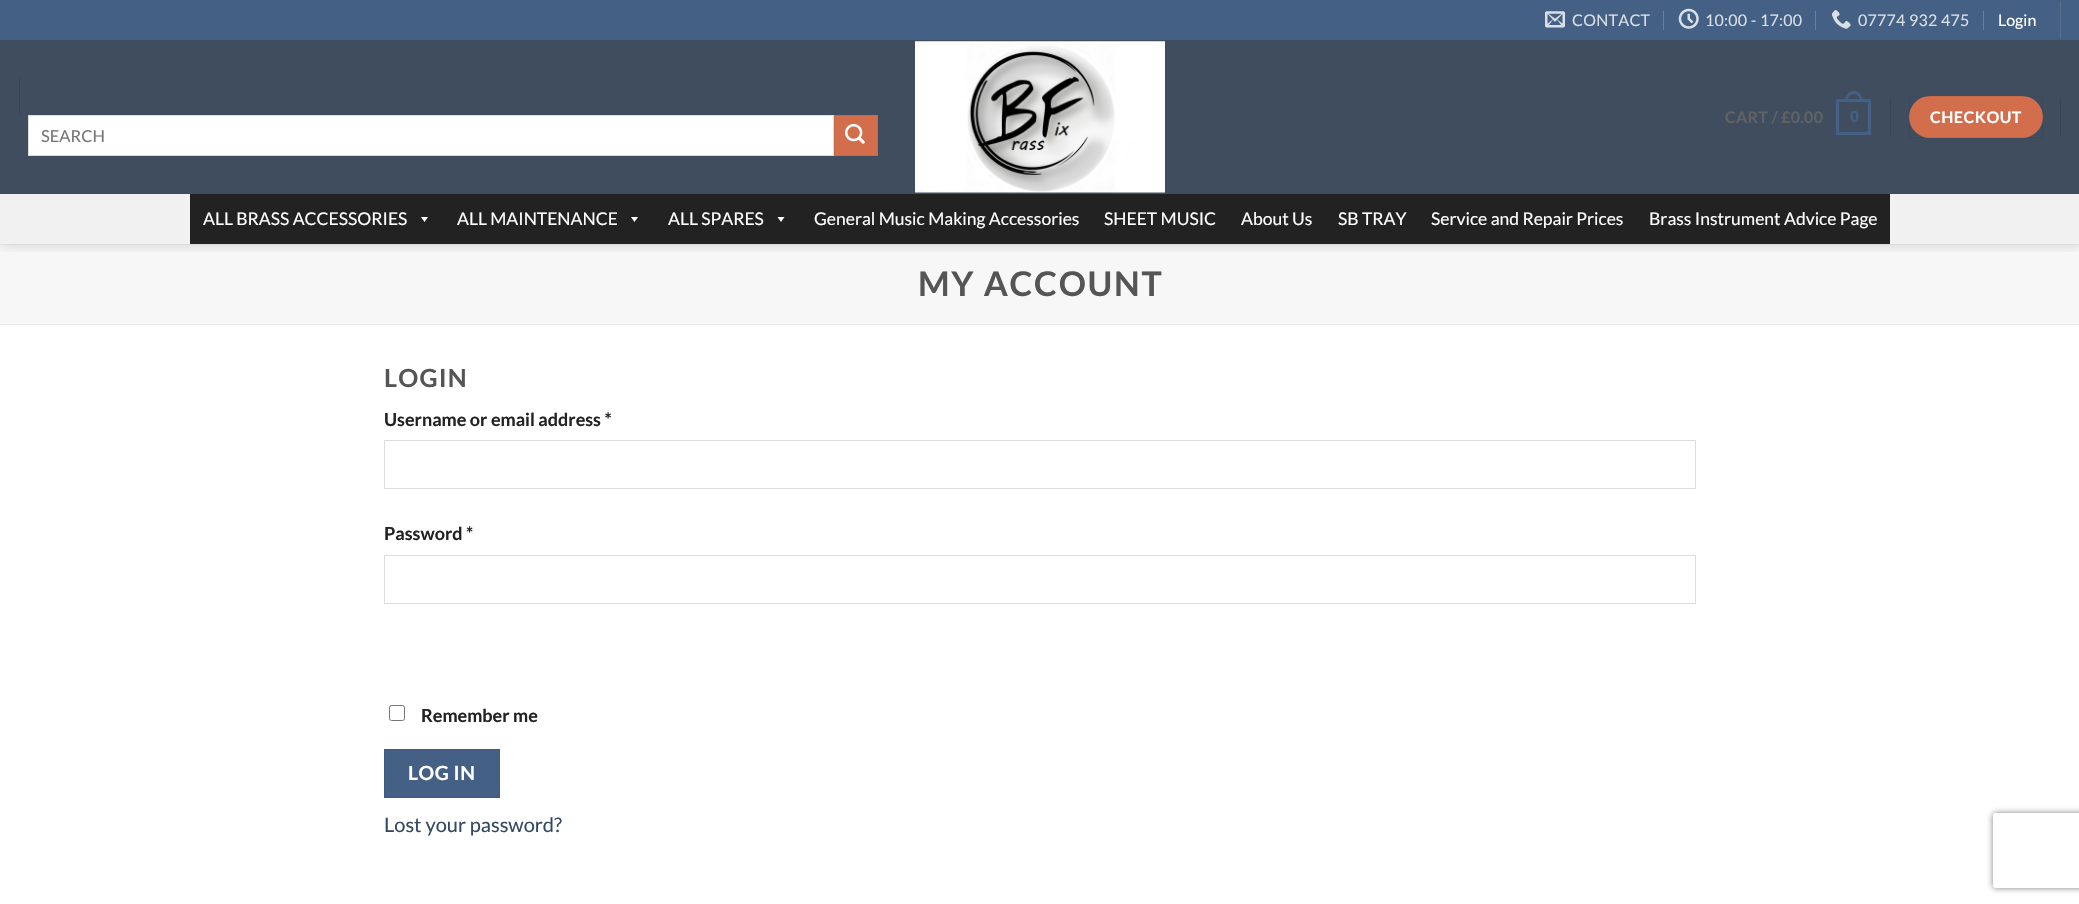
void draw(SkCanvas* canvas) {
    SkPaint paint;
    paint.setAntiAlias(true);
    auto spacedText = [&](const char* s, float x, float y, const SkFont& font, const SkPaint& ink, float letter, float word) {
        std::vector<SkGlyphID> glyphs(font.countText(s, strlen(s), SkTextEncoding::kUTF8));
        std::vector<float> xs(glyphs.size());
        font.textToGlyphs(s, strlen(s), SkTextEncoding::kUTF8, glyphs);
        font.getXPos(glyphs, xs, x);
        float extra = 0;
        for (size_t i = 0; i < glyphs.size(); i++) {
            xs[i] += extra;
            extra += letter + word * (glyphs[i] == font.unicharToGlyph(' '));
        }
        canvas->drawTextBlob(SkTextBlob::MakeFromPosHGlyphs(glyphs, xs, y, font), 0, 0, ink);
    };
    canvas->clear(0xFFFFFFFF);
    paint.setColor(0xFFF7F7F7);
    canvas->drawRect(SkRect::MakeXYWH(0, 245, 2079, 79), paint);
    paint.setColor(0xFFECECEC);
    canvas->drawRect(SkRect::MakeXYWH(0, 244, 2079, 1), paint);
    canvas->save();
    canvas->clipRect(SkRect::MakeXYWH(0, 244, 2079, 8));
    paint.setColor(0x26000000);
    paint.setMaskFilter(SkMaskFilter::MakeBlur(kNormal_SkBlurStyle, 6));
    canvas->drawRect(SkRect::MakeXYWH(1, 1, 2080, 244), paint);
    paint.setMaskFilter(nullptr);
    canvas->restore();
    paint.setColor(0xFF446084);
    canvas->drawRect(SkRect::MakeXYWH(0, 0, 2079, 40), paint);
    canvas->drawImageRect(SkImages::DeferredFromEncodedData(SkData::MakeFromFileName("img1.png")), SkRect::MakeXYWH(1545, 11, 20, 17), SkSamplingOptions());
    SkFont font1(fontMgr->matchFamilyStyle("Lato", SkFontStyle::Normal()), 16);
    font1.setSubpixel(true);
    paint.setColor(0xFFDADFE6);
    spacedText("CONTACT", 1572, 26, font1, paint, 0.25f, 0);
    paint.setColor(0xFF69809D);
    canvas->drawRect(SkRect::MakeXYWH(1663, 11, 1, 19), paint);
    canvas->drawImageRect(SkImages::DeferredFromEncodedData(SkData::MakeFromFileName("img2.png")), SkRect::MakeXYWH(1678, 8, 21, 21), SkSamplingOptions());
    paint.setColor(0xFFDADFE6);
    spacedText("10:00 - 17:00", 1705, 26, font1, paint, 0.25f, 0);
    paint.setColor(0xFF69809D);
    canvas->drawRect(SkRect::MakeXYWH(1815, 11, 1, 19), paint);
    canvas->drawImageRect(SkImages::DeferredFromEncodedData(SkData::MakeFromFileName("img3.png")), SkRect::MakeXYWH(1831, 10, 20, 19), SkSamplingOptions());
    paint.setColor(0xFFDADFE6);
    spacedText("07774 932 475", 1858, 26, font1, paint, 0.25f, 0);
    paint.setColor(0xFF69809D);
    canvas->drawRect(SkRect::MakeXYWH(1983, 11, 1, 19), paint);
    paint.setColor(0xFFFFFFFF);
    canvas->drawString("Login", 1998, 26, font1, paint);
    paint.setColor(0xFF577090);
    canvas->drawRect(SkRect::MakeXYWH(2060, 1, 1, 38), paint);
    paint.setColor(0xC202152D);
    canvas->drawRect(SkRect::MakeXYWH(0, 40, 2079, 154), paint);
    canvas->drawImageRect(SkImages::DeferredFromEncodedData(SkData::MakeFromFileName("img4.png")), SkRect::MakeXYWH(915, 41, 250, 152), SkSamplingOptions());
    SkFont font2(fontMgr->matchFamilyStyle("Lato", SkFontStyle::Bold()), 16);
    font2.setSubpixel(true);
    paint.setColor(0xFF606265);
    spacedText("CART / £0.00", 1725, 123, font2, paint, 0.25f, 0);
    paint.setStyle(SkPaint::kStroke_Style);
    paint.setStrokeWidth(3);
    paint.setColor(0xFF446084);
    canvas->drawRect(SkRect::MakeXYWH(1837.5f, 100.5f, 32, 33), paint);
    paint.setStyle(SkPaint::kFill_Style);
    canvas->drawPath(SkPathBuilder(SkPathFillType::kEvenOdd).moveTo(1854, 91).cubicTo(1859.5f, 91, 1862.5f, 96, 1862.5f, 101).lineTo(1845, 101).cubicTo(1845, 96, 1848, 91, 1854, 91).close().moveTo(1854, 94).cubicTo(1858, 94, 1860, 97.5f, 1860, 101).lineTo(1847.5f, 101).cubicTo(1847.5f, 97.5f, 1849.5f, 94, 1854, 94).close().detach(), paint);
    SkFont font3(fontMgr->matchFamilyStyle("Liberation Sans", SkFontStyle::Bold()), 16);
    font3.setSubpixel(true);
    spacedText("0", 1850, 122, font3, paint, 0.25f, 0);
    paint.setColor(0xFF394556);
    canvas->drawRect(SkRect::MakeXYWH(1890, 99, 1, 37), paint);
    paint.setColor(0xFFD26E4B);
    canvas->drawRoundRect(SkRect::MakeXYWH(1909, 96, 134, 42), 21, 21, paint);
    paint.setStyle(SkPaint::kStroke_Style);
    paint.setStrokeWidth(1);
    paint.setColor(0x0D000000);
    canvas->drawRect(SkRect::MakeXYWH(1909.5f, 96.5f, 133, 41), paint);
    paint.setStyle(SkPaint::kFill_Style);
    paint.setColor(0xFFFFFFFF);
    spacedText("CHECKOUT", 1930, 123, font2, paint, 0.5f, 0);
    paint.setColor(0xFF394556);
    canvas->drawRect(SkRect::MakeXYWH(2060, 99, 1, 37), paint);
    canvas->drawRect(SkRect::MakeXYWH(19, 78, 1, 37), paint);
    paint.setColor(0xFFFFFFFF);
    canvas->drawRect(SkRect::MakeXYWH(28.5f, 115.5f, 805, 40), paint);
    paint.setStyle(SkPaint::kStroke_Style);
    paint.setColor(0xFFDDDDDD);
    canvas->drawRect(SkRect::MakeXYWH(28.5f, 115.5f, 805, 40), paint);
    SkFont font4(fontMgr->matchFamilyStyle("Lato", SkFontStyle::Normal()), 16.5f);
    font4.setSubpixel(true);
    paint.setStyle(SkPaint::kFill_Style);
    paint.setColor(0xFF757575);
    canvas->drawString("SEARCH", 41, 142, font4, paint);
    paint.setColor(0xFFD26E4B);
    canvas->drawRect(SkRect::MakeXYWH(834.5f, 115.5f, 43, 40), paint);
    paint.setStyle(SkPaint::kStroke_Style);
    paint.setColor(0xFFC86947);
    canvas->drawRect(SkRect::MakeXYWH(834.5f, 115.5f, 43, 40), paint);
    canvas->drawImageRect(SkImages::DeferredFromEncodedData(SkData::MakeFromFileName("img5.png")), SkRect::MakeXYWH(845, 123, 20, 21), SkSamplingOptions());
    paint.setStyle(SkPaint::kFill_Style);
    paint.setColor(0xFFF1F1F1);
    canvas->drawRect(SkRect::MakeXYWH(0, 194, 2079, 50), paint);
    paint.setColor(0xFF222222);
    canvas->drawRect(SkRect::MakeXYWH(190, 194, 1700, 50), paint);
    SkFont font5(fontMgr->matchFamilyStyle("Lato", SkFontStyle::Normal()), 17.5f);
    font5.setSubpixel(true);
    paint.setColor(0xFFFFFFFF);
    canvas->drawString("ALL BRASS ACCESSORIES", 203, 225, font5, paint);
    canvas->drawPath(SkPathBuilder().moveTo(428, 217).lineTo(424.5f, 222).lineTo(421, 217).close().detach(), paint);
    canvas->drawString("ALL MAINTENANCE", 457, 225, font5, paint);
    canvas->drawPath(SkPathBuilder().moveTo(638, 217).lineTo(634.5f, 222).lineTo(631, 217).close().detach(), paint);
    canvas->drawString("ALL SPARES", 668, 225, font5, paint);
    canvas->drawPath(SkPathBuilder().moveTo(784.5f, 217).lineTo(781, 222).lineTo(777.5f, 217).close().detach(), paint);
    canvas->drawString("General Music Making Accessories", 814, 225, font5, paint);
    canvas->drawString("SHEET MUSIC", 1104, 225, font5, paint);
    canvas->drawString("About Us", 1241, 225, font5, paint);
    canvas->drawString("SB TRAY", 1338, 225, font5, paint);
    canvas->drawString("Service and Repair Prices", 1431, 225, font5, paint);
    canvas->drawString("Brass Instrument Advice Page", 1649, 225, font5, paint);
    paint.setColor(0xFFECECEC);
    canvas->drawRect(SkRect::MakeXYWH(0, 324, 2079, 1), paint);
    SkFont font6(fontMgr->matchFamilyStyle("Lato", SkFontStyle::Bold()), 34);
    font6.setSubpixel(true);
    paint.setColor(0xFF555555);
    spacedText("MY ACCOUNT", 918, 296, font6, paint, 1.75f, 0);
    SkFont font7(fontMgr->matchFamilyStyle("Lato", SkFontStyle::Bold()), 25);
    font7.setSubpixel(true);
    spacedText("LOGIN", 384, 387, font7, paint, 1.25f, 0);
    SkFont font8(fontMgr->matchFamilyStyle("Lato", SkFontStyle::Bold()), 18);
    font8.setSubpixel(true);
    paint.setColor(0xFF222222);
    canvas->drawString("Username or email address *", 384, 426, font8, paint);
    paint.setStyle(SkPaint::kStroke_Style);
    paint.setColor(0xFFDDDDDD);
    canvas->drawRect(SkRect::MakeXYWH(384.5f, 440.5f, 1311, 48), paint);
    paint.setStyle(SkPaint::kFill_Style);
    paint.setColor(0xFF222222);
    canvas->drawString("Password *", 384, 540, font8, paint);
    paint.setStyle(SkPaint::kStroke_Style);
    paint.setColor(0xFFDDDDDD);
    canvas->drawRect(SkRect::MakeXYWH(384.5f, 555.5f, 1311, 48), paint);
    paint.setColor(0xFF767676);
    canvas->drawRoundRect(SkRect::MakeXYWH(389.5f, 705.5f, 15, 15), 2, 2, paint);
    paint.setStyle(SkPaint::kFill_Style);
    paint.setColor(0xFF222222);
    canvas->drawString("Remember me", 421, 722, font8, paint);
    paint.setColor(0xFF446084);
    canvas->drawRect(SkRect::MakeXYWH(384.5f, 749.5f, 115, 48), paint);
    paint.setStyle(SkPaint::kStroke_Style);
    paint.setColor(0xFF415B7D);
    canvas->drawRect(SkRect::MakeXYWH(384.5f, 749.5f, 115, 48), paint);
    SkFont font9(fontMgr->matchFamilyStyle("Lato", SkFontStyle::Bold()), 19.5f);
    font9.setSubpixel(true);
    paint.setStyle(SkPaint::kFill_Style);
    paint.setColor(0xFFFFFFFF);
    spacedText("LOG IN", 408, 780, font9, paint, 0.5f, 0);
    SkFont font10(fontMgr->matchFamilyStyle("Lato", SkFontStyle::Normal()), 20);
    font10.setSubpixel(true);
    paint.setColor(0xFF334862);
    canvas->drawString("Lost your password?", 384, 832, font10, paint);
    canvas->save();
    canvas->clipPath(SkPathBuilder(SkPathFillType::kEvenOdd).moveTo(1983, 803).lineTo(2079, 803).lineTo(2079, 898).lineTo(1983, 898).close().moveTo(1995.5f, 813).lineTo(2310.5f, 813).cubicTo(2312, 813, 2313, 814, 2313, 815.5f).lineTo(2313, 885.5f).cubicTo(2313, 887, 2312, 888, 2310.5f, 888).lineTo(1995.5f, 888).cubicTo(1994, 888, 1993, 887, 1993, 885.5f).lineTo(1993, 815.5f).cubicTo(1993, 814, 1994, 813, 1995.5f, 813).close().detach(), true);
    paint.setColor(0xFF808080);
    paint.setMaskFilter(SkMaskFilter::MakeBlur(kNormal_SkBlurStyle, 3));
    canvas->drawRoundRect(SkRect::MakeXYWH(1993, 813, 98, 75), 2.5f, 2.5f, paint);
    paint.setMaskFilter(nullptr);
    canvas->restore();
}
